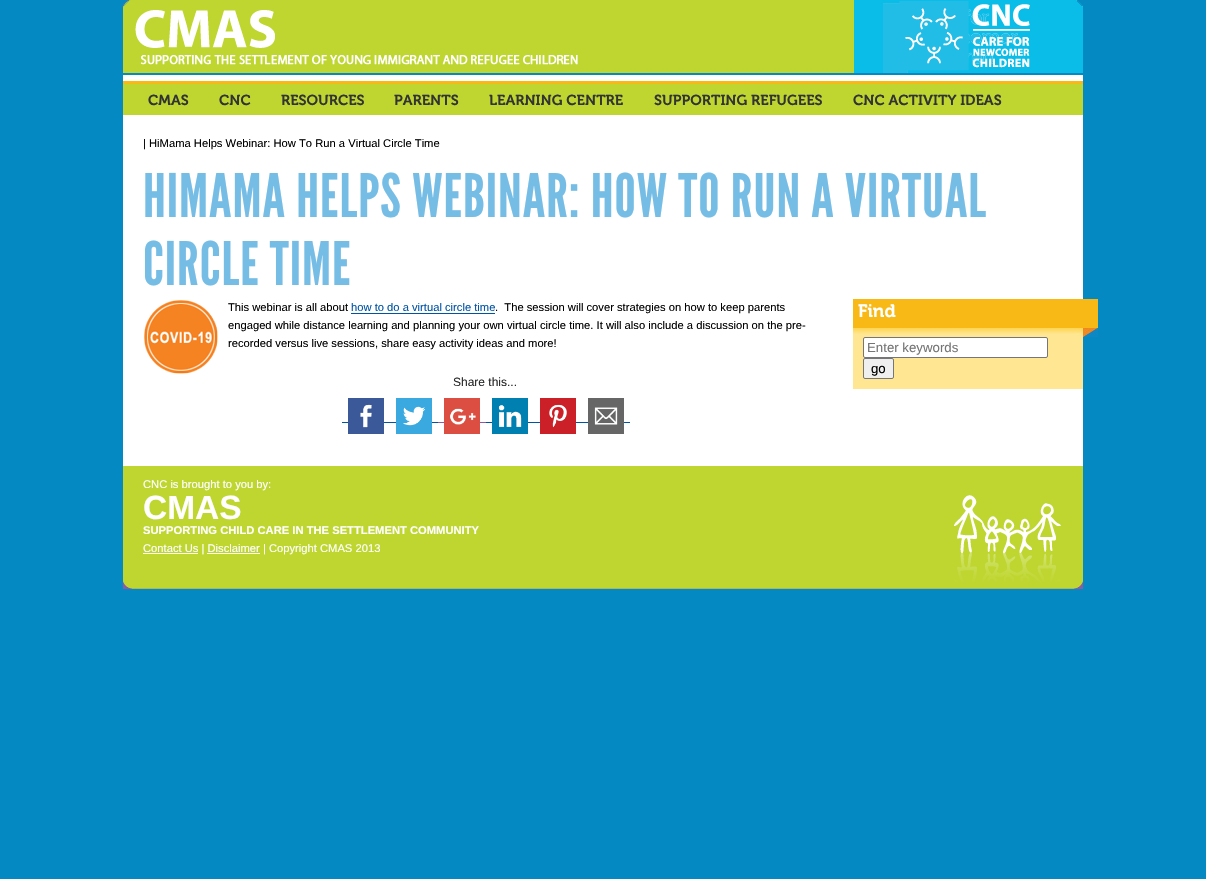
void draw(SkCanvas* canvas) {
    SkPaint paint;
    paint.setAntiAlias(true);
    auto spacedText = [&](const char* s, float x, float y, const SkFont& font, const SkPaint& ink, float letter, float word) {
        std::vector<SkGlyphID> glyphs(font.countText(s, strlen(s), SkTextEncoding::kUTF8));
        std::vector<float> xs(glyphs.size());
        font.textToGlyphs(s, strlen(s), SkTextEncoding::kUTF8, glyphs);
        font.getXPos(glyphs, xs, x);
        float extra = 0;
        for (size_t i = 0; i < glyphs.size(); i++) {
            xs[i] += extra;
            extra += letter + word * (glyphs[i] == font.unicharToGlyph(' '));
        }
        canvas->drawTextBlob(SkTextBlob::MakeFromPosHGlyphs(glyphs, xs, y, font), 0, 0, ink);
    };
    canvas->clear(0xFF0589C3);
    canvas->drawImageRect(SkImages::DeferredFromEncodedData(SkData::MakeFromFileName("img1.png")), SkRect::MakeXYWH(123, 0, 960, 73), SkSamplingOptions());
    paint.setColor(0xFFBED62F);
    canvas->drawRect(SkRect::MakeXYWH(123, 84, 960, 31), paint);
    paint.setColor(0xFFFFFFFF);
    canvas->drawRect(SkRect::MakeXYWH(123, 75, 960, 6), paint);
    paint.setColor(0xFFF8B916);
    canvas->drawRect(SkRect::MakeXYWH(123, 81, 960, 3), paint);
    SkFont font1(fontMgr->matchFamilyStyle("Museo", SkFontStyle(600, SkFontStyle::kNormal_Width, SkFontStyle::kUpright_Slant)), 14.5f);
    font1.setSubpixel(true);
    paint.setColor(0xFF333333);
    canvas->drawString("CMAS", 148, 105, font1, paint);
    canvas->drawString("CNC", 219, 105, font1, paint);
    canvas->drawString("RESOURCES", 281, 105, font1, paint);
    canvas->drawString("PARENTS", 394, 105, font1, paint);
    canvas->drawString("LEARNING CENTRE", 489, 105, font1, paint);
    canvas->drawString("SUPPORTING REFUGEES", 654, 105, font1, paint);
    canvas->drawString("CNC ACTIVITY IDEAS", 853, 105, font1, paint);
    paint.setColor(0xFFFFFFFF);
    canvas->drawRect(SkRect::MakeXYWH(123, 115, 960, 351), paint);
    SkFont font2(fontMgr->matchFamilyStyle("Liberation Sans", SkFontStyle::Normal()), 11.2f);
    font2.setSubpixel(true);
    paint.setColor(0xFF000000);
    canvas->drawString("| HiMama Helps Webinar: How To Run a Virtual Circle Time", 143, 147, font2, paint);
    SkFont font3(fontMgr->matchFamilyStyle("League Gothic", SkFontStyle::Normal()), 60);
    font3.setSubpixel(true);
    paint.setColor(0xFF76BDE6);
    spacedText("HIMAMA HELPS WEBINAR: HOW TO RUN A VIRTUAL", 143, 217, font3, paint, 1, 0);
    spacedText("CIRCLE TIME", 143, 285, font3, paint, 1, 0);
    canvas->drawImageRect(SkImages::DeferredFromEncodedData(SkData::MakeFromFileName("img2.png")), SkRect::MakeXYWH(144, 300, 74, 74), SkSamplingOptions());
    paint.setColor(0xFF000000);
    canvas->drawString("This webinar is all about", 228, 311, font2, paint);
    paint.setColor(0xFF0054A5);
    canvas->drawString("how to do a virtual circle time", 351, 311, font2, paint);
    canvas->drawRect(SkRect::MakeXYWH(351, 313, 144, 1), paint);
    paint.setColor(0xFF000000);
    canvas->drawString(".  The session will cover strategies on how to keep parents", 495, 311, font2, paint);
    canvas->drawString("engaged while distance learning and planning your own virtual circle time. It will also include a discussion on the pre-", 228, 329, font2, paint);
    canvas->drawString("recorded versus live sessions, share easy activity ideas and more!", 228, 347, font2, paint);
    SkFont font4(fontMgr->matchFamilyStyle("Liberation Sans", SkFontStyle::Normal()), 12);
    font4.setSubpixel(true);
    paint.setColor(0xFF272727);
    canvas->drawString("Share this...", 453, 386, font4, paint);
    paint.setColor(0xFF0054A5);
    canvas->drawRect(SkRect::MakeXYWH(342, 422, 96, 1), paint);
    canvas->drawImageRect(SkImages::DeferredFromEncodedData(SkData::MakeFromFileName("img3.png")), SkRect::MakeXYWH(348, 398, 36, 36), SkSamplingOptions());
    canvas->drawImageRect(SkImages::DeferredFromEncodedData(SkData::MakeFromFileName("img4.png")), SkRect::MakeXYWH(396, 398, 36, 36), SkSamplingOptions());
    paint.setColor(0xFF8C5BA4);
    canvas->drawRect(SkRect::MakeXYWH(438, 422, 48, 1), paint);
    canvas->drawImageRect(SkImages::DeferredFromEncodedData(SkData::MakeFromFileName("img5.png")), SkRect::MakeXYWH(444, 398, 36, 36), SkSamplingOptions());
    paint.setColor(0xFF0054A5);
    canvas->drawRect(SkRect::MakeXYWH(486, 422, 144, 1), paint);
    canvas->drawImageRect(SkImages::DeferredFromEncodedData(SkData::MakeFromFileName("img6.png")), SkRect::MakeXYWH(492, 398, 36, 36), SkSamplingOptions());
    canvas->drawImageRect(SkImages::DeferredFromEncodedData(SkData::MakeFromFileName("img7.png")), SkRect::MakeXYWH(540, 398, 36, 36), SkSamplingOptions());
    canvas->drawImageRect(SkImages::DeferredFromEncodedData(SkData::MakeFromFileName("img8.png")), SkRect::MakeXYWH(588, 398, 36, 36), SkSamplingOptions());
    paint.setColor(0xFFF8B916);
    canvas->drawRect(SkRect::MakeXYWH(853, 299, 245, 29), paint);
    canvas->drawImageRect(SkImages::DeferredFromEncodedData(SkData::MakeFromFileName("img9.png")), SkRect::MakeXYWH(853, 328, 245, 9), SkSamplingOptions());
    SkFont font5(fontMgr->matchFamilyStyle("Museo", SkFontStyle(600, SkFontStyle::kNormal_Width, SkFontStyle::kUpright_Slant)), 18);
    font5.setSubpixel(true);
    paint.setColor(0xFFFFFFFF);
    canvas->drawString("Find", 858, 317, font5, paint);
    paint.setColor(0xFFFFE693);
    canvas->drawRect(SkRect::MakeXYWH(853, 337, 230, 52), paint);
    paint.setColor(0xFFFFFFFF);
    canvas->drawRoundRect(SkRect::MakeXYWH(863.5f, 337.5f, 184, 20), 1.5f, 1.5f, paint);
    paint.setStyle(SkPaint::kStroke_Style);
    paint.setStrokeWidth(1);
    paint.setColor(0xFF767676);
    canvas->drawRoundRect(SkRect::MakeXYWH(863.5f, 337.5f, 184, 20), 1.5f, 1.5f, paint);
    SkFont font6(fontMgr->matchFamilyStyle("Liberation Sans", SkFontStyle::Normal()), 13.25f);
    font6.setSubpixel(true);
    paint.setStyle(SkPaint::kFill_Style);
    paint.setColor(0xFF757575);
    canvas->drawString("Enter keywords", 867, 352, font6, paint);
    paint.setColor(0xFFEFEFEF);
    canvas->drawRoundRect(SkRect::MakeXYWH(863.5f, 358.5f, 30, 20), 1.5f, 1.5f, paint);
    paint.setStyle(SkPaint::kStroke_Style);
    paint.setColor(0xFF767676);
    canvas->drawRoundRect(SkRect::MakeXYWH(863.5f, 358.5f, 30, 20), 1.5f, 1.5f, paint);
    paint.setStyle(SkPaint::kFill_Style);
    paint.setColor(0xFF000000);
    canvas->drawString("go", 871, 373, font6, paint);
    canvas->drawImageRect(SkImages::DeferredFromEncodedData(SkData::MakeFromFileName("img10.png")), SkRect::MakeXYWH(123, 466, 960, 123), SkSamplingOptions());
    paint.setColor(0xFFFFFFFF);
    canvas->drawString("CNC is brought to you by:", 143, 488, font2, paint);
    SkFont font7(fontMgr->matchFamilyStyle("Liberation Sans", SkFontStyle::Bold()), 33.5f);
    font7.setSubpixel(true);
    canvas->drawString("CMAS", 143, 519, font7, paint);
    SkFont font8(fontMgr->matchFamilyStyle("Liberation Sans", SkFontStyle::Bold()), 11.2f);
    font8.setSubpixel(true);
    canvas->drawString("SUPPORTING CHILD CARE IN THE SETTLEMENT COMMUNITY", 143, 534, font8, paint);
    canvas->drawRect(SkRect::MakeXYWH(143, 553, 55, 1), paint);
    canvas->drawString("Contact Us | Disclaimer | Copyright CMAS 2013", 143, 552, font2, paint);
    canvas->drawRect(SkRect::MakeXYWH(207, 553, 53, 1), paint);
}
